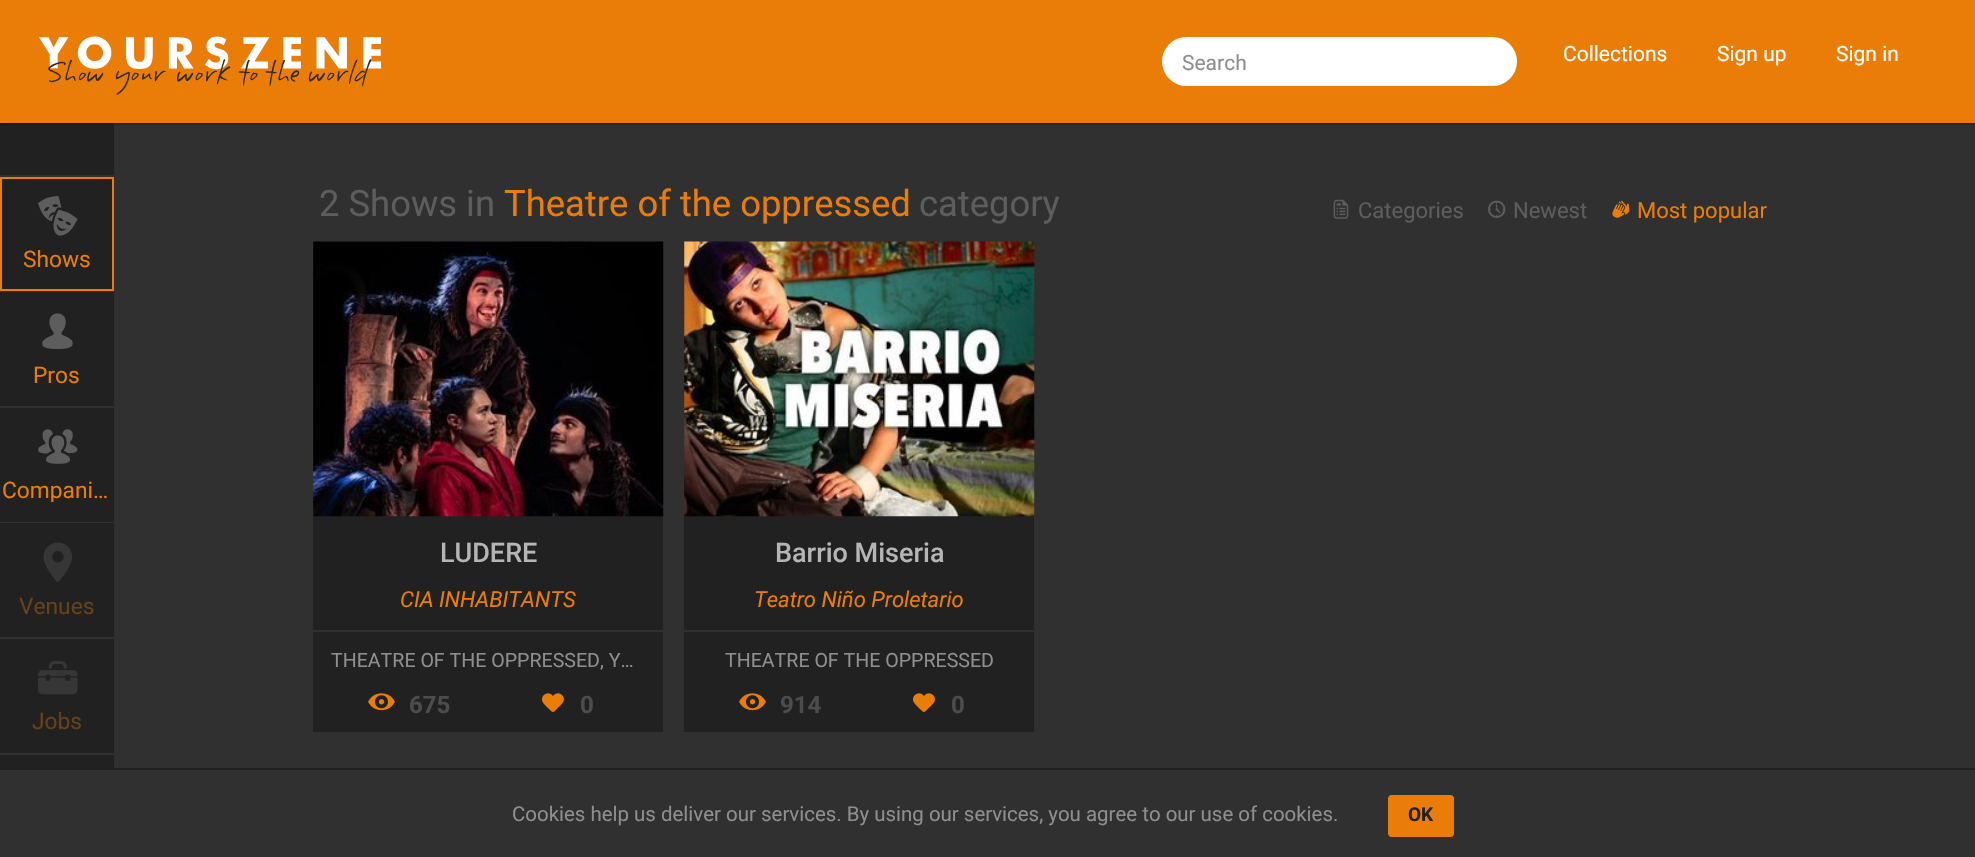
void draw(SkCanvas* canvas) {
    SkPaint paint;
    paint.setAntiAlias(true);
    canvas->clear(0xFF303030);
    paint.setColor(0xFF212121);
    canvas->drawRect(SkRect::MakeXYWH(0, 123, 114, 645), paint);
    paint.setColor(0x80000000);
    paint.setMaskFilter(SkMaskFilter::MakeBlur(kNormal_SkBlurStyle, 1));
    canvas->drawRect(SkRect::MakeXYWH(0, 2, 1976, 122), paint);
    paint.setMaskFilter(nullptr);
    paint.setColor(0xFFEA7D07);
    canvas->drawRect(SkRect::MakeXYWH(0, 0, 1975, 123), paint);
    canvas->drawImageRect(SkImages::DeferredFromEncodedData(SkData::MakeFromFileName("img1.png")), SkRect::MakeXYWH(39, 36, 343, 59), SkSamplingOptions());
    paint.setColor(0xFFFFFFFF);
    canvas->drawRoundRect(SkRect::MakeXYWH(1162, 37, 355, 49), 24.5f, 24.5f, paint);
    SkFont font1(fontMgr->matchFamilyStyle("Roboto", SkFontStyle::Normal()), 21);
    font1.setSubpixel(true);
    paint.setColor(0xFF8E8E8E);
    canvas->drawString("Search", 1182, 70, font1, paint);
    paint.setColor(0xFFFFFFFF);
    canvas->drawString("Collections", 1563, 61, font1, paint);
    canvas->drawString("Sign up", 1717, 61, font1, paint);
    canvas->drawString("Sign in", 1836, 61, font1, paint);
    paint.setColor(0xFF303030);
    canvas->drawRect(SkRect::MakeXYWH(0, 175, 114, 2), paint);
    paint.setStyle(SkPaint::kStroke_Style);
    paint.setStrokeWidth(2);
    paint.setColor(0xFFEA7D07);
    canvas->drawRect(SkRect::MakeXYWH(1, 178, 112, 112), paint);
    canvas->drawImageRect(SkImages::DeferredFromEncodedData(SkData::MakeFromFileName("img2.png")), SkRect::MakeXYWH(38, 196, 40, 40), SkSamplingOptions());
    SkFont font2(fontMgr->matchFamilyStyle("Roboto", SkFontStyle::Normal()), 22.75f);
    font2.setSubpixel(true);
    paint.setStyle(SkPaint::kFill_Style);
    canvas->drawString("Shows", 23, 267, font2, paint);
    paint.setColor(0xFF303030);
    canvas->drawRect(SkRect::MakeXYWH(0, 291, 114, 1), paint);
    canvas->drawImageRect(SkImages::DeferredFromEncodedData(SkData::MakeFromFileName("img3.png")), SkRect::MakeXYWH(42, 313, 31, 36), SkSamplingOptions());
    paint.setColor(0xFFEA7D07);
    canvas->drawString("Pros", 33, 383, font2, paint);
    paint.setColor(0xFF303030);
    canvas->drawRect(SkRect::MakeXYWH(0, 406, 114, 2), paint);
    canvas->drawImageRect(SkImages::DeferredFromEncodedData(SkData::MakeFromFileName("img4.png")), SkRect::MakeXYWH(38, 429, 40, 35), SkSamplingOptions());
    canvas->save();
    canvas->clipRect(SkRect::MakeXYWH(2, 480, 110, 22));
    paint.setColor(0xFFEA7D07);
    canvas->drawString("Compani…", 2, 498, font2, paint);
    canvas->restore();
    paint.setColor(0xFF303030);
    canvas->drawRect(SkRect::MakeXYWH(0, 522, 114, 1), paint);
    canvas->drawImageRect(SkImages::DeferredFromEncodedData(SkData::MakeFromFileName("img5.png")), SkRect::MakeXYWH(43, 542, 29, 40), SkSamplingOptions());
    paint.setColor(0xFF674118);
    canvas->drawString("Venues", 19, 614, font2, paint);
    paint.setColor(0xFF303030);
    canvas->drawRect(SkRect::MakeXYWH(0, 637, 114, 2), paint);
    canvas->drawImageRect(SkImages::DeferredFromEncodedData(SkData::MakeFromFileName("img6.png")), SkRect::MakeXYWH(38, 661, 40, 34), SkSamplingOptions());
    paint.setColor(0xFF674118);
    canvas->drawString("Jobs", 32, 729, font2, paint);
    paint.setColor(0xFF303030);
    canvas->drawRect(SkRect::MakeXYWH(0, 753, 114, 2), paint);
    SkFont font3(fontMgr->matchFamilyStyle("Roboto", SkFontStyle::Normal()), 36.4f);
    font3.setSubpixel(true);
    paint.setColor(0xFF5D5D5D);
    canvas->drawString("2 Shows in", 319, 216, font3, paint);
    paint.setColor(0xFFEA7D07);
    canvas->drawString("Theatre of the oppressed", 504, 216, font3, paint);
    paint.setColor(0xFF5D5D5D);
    canvas->drawString("category", 919, 216, font3, paint);
    canvas->drawImageRect(SkImages::DeferredFromEncodedData(SkData::MakeFromFileName("img7.png")), SkRect::MakeXYWH(1333, 199, 16, 20), SkSamplingOptions());
    SkFont font4(fontMgr->matchFamilyStyle("Roboto", SkFontStyle::Normal()), 22);
    font4.setSubpixel(true);
    canvas->drawString("Categories", 1358, 218, font4, paint);
    canvas->drawImageRect(SkImages::DeferredFromEncodedData(SkData::MakeFromFileName("img8.png")), SkRect::MakeXYWH(1488, 200, 18, 18), SkSamplingOptions());
    canvas->drawString("Newest", 1513, 218, font4, paint);
    canvas->drawImageRect(SkImages::DeferredFromEncodedData(SkData::MakeFromFileName("img9.png")), SkRect::MakeXYWH(1612, 200, 18, 18), SkSamplingOptions());
    paint.setColor(0xFFEA7D07);
    canvas->drawString("Most popular", 1637, 218, font4, paint);
    paint.setColor(0xFF212121);
    canvas->drawRect(SkRect::MakeXYWH(313, 242, 350, 490), paint);
    canvas->drawImageRect(SkImages::DeferredFromEncodedData(SkData::MakeFromFileName("img10.png")), SkRect::MakeXYWH(313, 241, 351, 276), SkSamplingOptions());
    SkFont font5(fontMgr->matchFamilyStyle("Roboto", SkFontStyle(500, SkFontStyle::kNormal_Width, SkFontStyle::kUpright_Slant)), 27);
    font5.setSubpixel(true);
    paint.setColor(0xFFB5B5B5);
    canvas->drawString("LUDERE", 440, 562, font5, paint);
    SkFont font6(fontMgr->matchFamilyStyle("Roboto", SkFontStyle::Italic()), 22);
    font6.setSubpixel(true);
    paint.setColor(0xFFEA7D07);
    canvas->drawString("CIA INHABITANTS", 400, 607, font6, paint);
    paint.setColor(0xFF303030);
    canvas->drawRect(SkRect::MakeXYWH(313, 630, 350, 2), paint);
    SkFont font7(fontMgr->matchFamilyStyle("Roboto", SkFontStyle::Normal()), 19.6f);
    font7.setSubpixel(true);
    paint.setColor(0xFF8E8E8E);
    canvas->drawString("THEATRE OF THE OPPRESSED, Y…", 331, 667, font7, paint);
    canvas->drawImageRect(SkImages::DeferredFromEncodedData(SkData::MakeFromFileName("img11.png")), SkRect::MakeXYWH(368, 693, 27, 18), SkSamplingOptions());
    SkFont font8(fontMgr->matchFamilyStyle("Roboto", SkFontStyle::Bold()), 24);
    font8.setSubpixel(true);
    paint.setColor(0xFF4C4C4C);
    canvas->drawString("675", 409, 713, font8, paint);
    canvas->drawImageRect(SkImages::DeferredFromEncodedData(SkData::MakeFromFileName("img12.png")), SkRect::MakeXYWH(542, 693, 22, 19), SkSamplingOptions());
    canvas->drawString("0", 580, 713, font8, paint);
    paint.setColor(0xFF212121);
    canvas->drawRect(SkRect::MakeXYWH(684, 242, 350, 490), paint);
    canvas->drawImageRect(SkImages::DeferredFromEncodedData(SkData::MakeFromFileName("img13.png")), SkRect::MakeXYWH(684, 241, 351, 276), SkSamplingOptions());
    paint.setColor(0xFFB5B5B5);
    canvas->drawString("Barrio Miseria", 775, 562, font5, paint);
    paint.setColor(0xFFEA7D07);
    canvas->drawString("Teatro Niño Proletario", 754, 607, font6, paint);
    paint.setColor(0xFF303030);
    canvas->drawRect(SkRect::MakeXYWH(684, 630, 350, 2), paint);
    paint.setColor(0xFF8E8E8E);
    canvas->drawString("THEATRE OF THE OPPRESSED", 725, 667, font7, paint);
    canvas->drawImageRect(SkImages::DeferredFromEncodedData(SkData::MakeFromFileName("img11.png")), SkRect::MakeXYWH(739, 693, 27, 18), SkSamplingOptions());
    paint.setColor(0xFF4C4C4C);
    canvas->drawString("914", 780, 713, font8, paint);
    canvas->drawImageRect(SkImages::DeferredFromEncodedData(SkData::MakeFromFileName("img12.png")), SkRect::MakeXYWH(913, 693, 22, 19), SkSamplingOptions());
    canvas->drawString("0", 951, 713, font8, paint);
    paint.setColor(0xFF212121);
    canvas->drawRect(SkRect::MakeXYWH(0, 768, 1975, 2), paint);
    SkFont font9(fontMgr->matchFamilyStyle("Roboto", SkFontStyle::Normal()), 20.45f);
    font9.setSubpixel(true);
    paint.setColor(0xFF8E8E8E);
    canvas->drawString("Cookies help us deliver our services. By using our services, you agree to our use of cookies.", 512, 821, font9, paint);
    paint.setColor(0xFFEA7D07);
    canvas->drawRoundRect(SkRect::MakeXYWH(1388, 795, 66, 42), 4, 4, paint);
    SkFont font10(fontMgr->matchFamilyStyle("Roboto", SkFontStyle::Bold()), 19);
    font10.setSubpixel(true);
    paint.setColor(0xFF212121);
    canvas->drawString("OK", 1408, 821, font10, paint);
}
